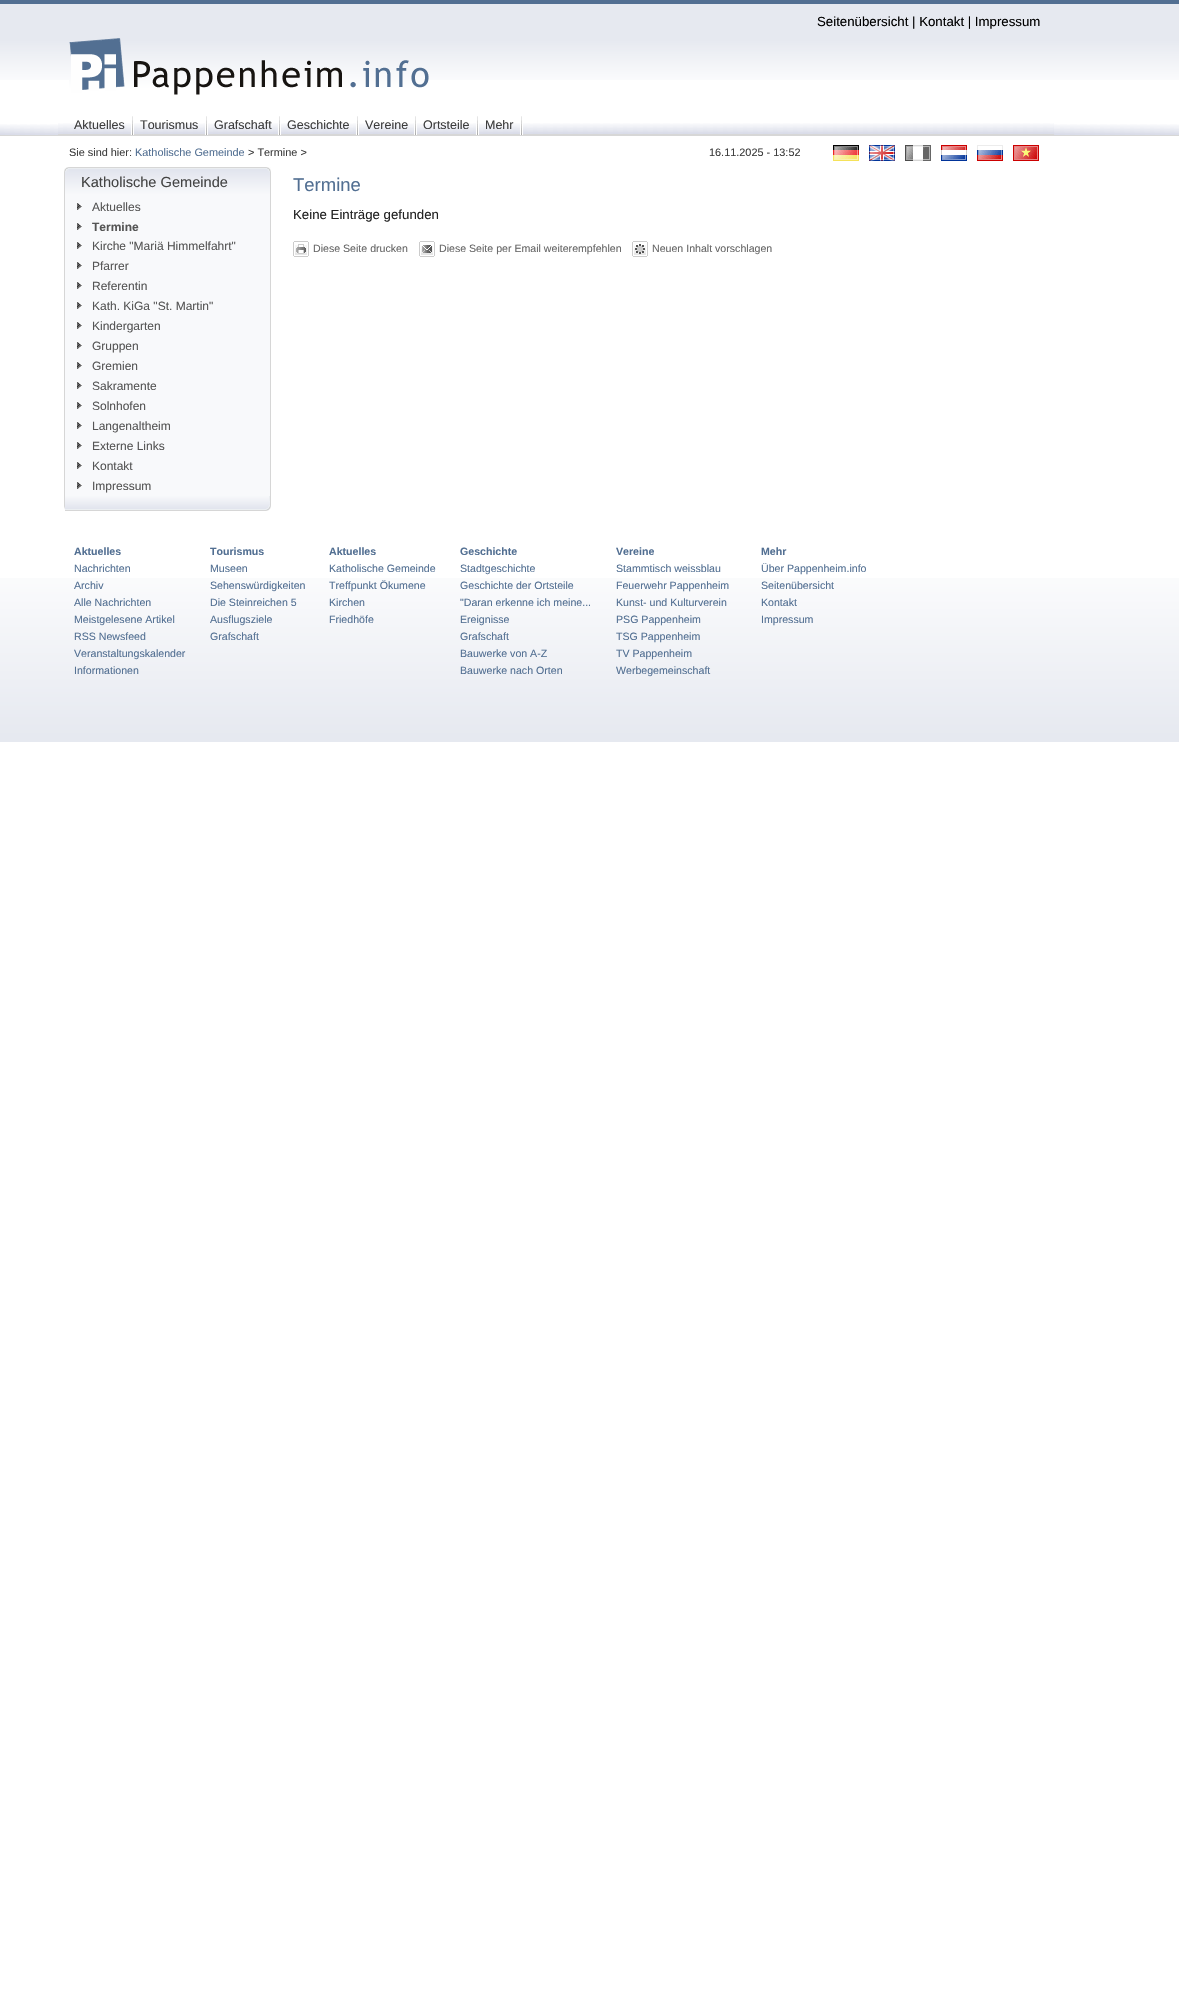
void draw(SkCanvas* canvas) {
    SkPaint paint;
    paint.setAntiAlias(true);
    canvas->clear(0xFFFFFFFF);
    canvas->drawImageRect(SkImages::DeferredFromEncodedData(SkData::MakeFromFileName("img1.png")), SkRect::MakeXYWH(0, 0, 1179, 80), SkSamplingOptions());
    SkFont font1(fontMgr->matchFamilyStyle("Liberation Sans", SkFontStyle::Normal()), 13.25f);
    font1.setSubpixel(true);
    paint.setColor(0xFF000000);
    canvas->drawString("Seitenübersicht | Kontakt | Impressum", 817, 26, font1, paint);
    canvas->drawImageRect(SkImages::DeferredFromEncodedData(SkData::MakeFromFileName("img2.png")), SkRect::MakeXYWH(69, 38, 360, 57), SkSamplingOptions());
    canvas->drawImageRect(SkImages::DeferredFromEncodedData(SkData::MakeFromFileName("img3.png")), SkRect::MakeXYWH(0, 124, 1179, 12), SkSamplingOptions());
    canvas->drawImageRect(SkImages::DeferredFromEncodedData(SkData::MakeFromFileName("img4.png")), SkRect::MakeXYWH(58, 123, 996, 12), SkSamplingOptions());
    canvas->drawImageRect(SkImages::DeferredFromEncodedData(SkData::MakeFromFileName("img5.png")), SkRect::MakeXYWH(131, 116, 3, 19), SkSamplingOptions());
    SkFont font2(fontMgr->matchFamilyStyle("Liberation Sans", SkFontStyle::Normal()), 12.5f);
    font2.setSubpixel(true);
    paint.setColor(0xFF3D3D3D);
    canvas->drawString("Aktuelles", 74, 129, font2, paint);
    canvas->drawImageRect(SkImages::DeferredFromEncodedData(SkData::MakeFromFileName("img5.png")), SkRect::MakeXYWH(205, 116, 3, 19), SkSamplingOptions());
    canvas->drawString("Tourismus", 140, 129, font2, paint);
    canvas->drawImageRect(SkImages::DeferredFromEncodedData(SkData::MakeFromFileName("img5.png")), SkRect::MakeXYWH(278, 116, 3, 19), SkSamplingOptions());
    canvas->drawString("Grafschaft", 214, 129, font2, paint);
    canvas->drawImageRect(SkImages::DeferredFromEncodedData(SkData::MakeFromFileName("img5.png")), SkRect::MakeXYWH(356, 116, 3, 19), SkSamplingOptions());
    canvas->drawString("Geschichte", 287, 129, font2, paint);
    canvas->drawImageRect(SkImages::DeferredFromEncodedData(SkData::MakeFromFileName("img5.png")), SkRect::MakeXYWH(414, 116, 3, 19), SkSamplingOptions());
    canvas->drawString("Vereine", 365, 129, font2, paint);
    canvas->drawImageRect(SkImages::DeferredFromEncodedData(SkData::MakeFromFileName("img5.png")), SkRect::MakeXYWH(476, 116, 3, 19), SkSamplingOptions());
    canvas->drawString("Ortsteile", 423, 129, font2, paint);
    canvas->drawImageRect(SkImages::DeferredFromEncodedData(SkData::MakeFromFileName("img5.png")), SkRect::MakeXYWH(520, 116, 3, 19), SkSamplingOptions());
    canvas->drawString("Mehr", 485, 129, font2, paint);
    SkFont font3(fontMgr->matchFamilyStyle("Liberation Sans", SkFontStyle::Normal()), 10.9f);
    font3.setSubpixel(true);
    canvas->drawString("Sie sind hier:", 69, 156, font3, paint);
    paint.setColor(0xFF526F92);
    canvas->drawString("Katholische Gemeinde", 135, 156, font3, paint);
    paint.setColor(0xFF3D3D3D);
    canvas->drawString("> Termine >", 248, 156, font3, paint);
    canvas->drawString("16.11.2025 - 13:52", 709, 156, font3, paint);
    canvas->drawImageRect(SkImages::DeferredFromEncodedData(SkData::MakeFromFileName("img6.png")), SkRect::MakeXYWH(833, 145, 26, 16), SkSamplingOptions());
    canvas->drawImageRect(SkImages::DeferredFromEncodedData(SkData::MakeFromFileName("img7.png")), SkRect::MakeXYWH(869, 145, 26, 16), SkSamplingOptions());
    canvas->drawImageRect(SkImages::DeferredFromEncodedData(SkData::MakeFromFileName("img8.png")), SkRect::MakeXYWH(905, 145, 26, 16), SkSamplingOptions());
    canvas->drawImageRect(SkImages::DeferredFromEncodedData(SkData::MakeFromFileName("img9.png")), SkRect::MakeXYWH(941, 145, 26, 16), SkSamplingOptions());
    canvas->drawImageRect(SkImages::DeferredFromEncodedData(SkData::MakeFromFileName("img10.png")), SkRect::MakeXYWH(977, 145, 26, 16), SkSamplingOptions());
    canvas->drawImageRect(SkImages::DeferredFromEncodedData(SkData::MakeFromFileName("img11.png")), SkRect::MakeXYWH(1013, 145, 26, 16), SkSamplingOptions());
    canvas->drawImageRect(SkImages::DeferredFromEncodedData(SkData::MakeFromFileName("img12.png")), SkRect::MakeXYWH(64, 167, 5, 31), SkSamplingOptions());
    canvas->drawImageRect(SkImages::DeferredFromEncodedData(SkData::MakeFromFileName("img13.png")), SkRect::MakeXYWH(69, 167, 202, 31), SkSamplingOptions());
    SkFont font4(fontMgr->matchFamilyStyle("Liberation Sans", SkFontStyle::Normal()), 14.6f);
    font4.setSubpixel(true);
    paint.setColor(0xFF444444);
    canvas->drawString("Katholische Gemeinde", 81, 187, font4, paint);
    paint.setColor(0xFFD6D6D6);
    canvas->drawRect(SkRect::MakeXYWH(64, 198, 1, 297), paint);
    canvas->drawImageRect(SkImages::DeferredFromEncodedData(SkData::MakeFromFileName("img14.png")), SkRect::MakeXYWH(64, 495, 1, 16), SkSamplingOptions());
    canvas->drawImageRect(SkImages::DeferredFromEncodedData(SkData::MakeFromFileName("img15.png")), SkRect::MakeXYWH(65, 496, 206, 15), SkSamplingOptions());
    canvas->drawRect(SkRect::MakeXYWH(270, 198, 1, 298), paint);
    paint.setColor(0xFFF8F9FB);
    canvas->drawRect(SkRect::MakeXYWH(65, 198, 205, 298), paint);
    canvas->drawImageRect(SkImages::DeferredFromEncodedData(SkData::MakeFromFileName("img16.png")), SkRect::MakeXYWH(77, 202, 5, 8), SkSamplingOptions());
    SkFont font5(fontMgr->matchFamilyStyle("Liberation Sans", SkFontStyle::Normal()), 12);
    font5.setSubpixel(true);
    paint.setColor(0xFF555555);
    canvas->drawString("Aktuelles", 92, 211, font5, paint);
    canvas->drawImageRect(SkImages::DeferredFromEncodedData(SkData::MakeFromFileName("img16.png")), SkRect::MakeXYWH(77, 222, 5, 8), SkSamplingOptions());
    SkFont font6(fontMgr->matchFamilyStyle("Liberation Sans", SkFontStyle::Bold()), 12);
    font6.setSubpixel(true);
    canvas->drawString("Termine", 92, 231, font6, paint);
    canvas->drawImageRect(SkImages::DeferredFromEncodedData(SkData::MakeFromFileName("img16.png")), SkRect::MakeXYWH(77, 241, 5, 8), SkSamplingOptions());
    canvas->drawString("Kirche \"Mariä Himmelfahrt\"", 92, 250, font5, paint);
    canvas->drawImageRect(SkImages::DeferredFromEncodedData(SkData::MakeFromFileName("img16.png")), SkRect::MakeXYWH(77, 261, 5, 8), SkSamplingOptions());
    canvas->drawString("Pfarrer", 92, 270, font5, paint);
    canvas->drawImageRect(SkImages::DeferredFromEncodedData(SkData::MakeFromFileName("img16.png")), SkRect::MakeXYWH(77, 281, 5, 8), SkSamplingOptions());
    canvas->drawString("Referentin", 92, 290, font5, paint);
    canvas->drawImageRect(SkImages::DeferredFromEncodedData(SkData::MakeFromFileName("img16.png")), SkRect::MakeXYWH(77, 301, 5, 8), SkSamplingOptions());
    canvas->drawString("Kath. KiGa \"St. Martin\"", 92, 310, font5, paint);
    canvas->drawImageRect(SkImages::DeferredFromEncodedData(SkData::MakeFromFileName("img16.png")), SkRect::MakeXYWH(77, 321, 5, 8), SkSamplingOptions());
    canvas->drawString("Kindergarten", 92, 330, font5, paint);
    canvas->drawImageRect(SkImages::DeferredFromEncodedData(SkData::MakeFromFileName("img16.png")), SkRect::MakeXYWH(77, 341, 5, 8), SkSamplingOptions());
    canvas->drawString("Gruppen", 92, 350, font5, paint);
    canvas->drawImageRect(SkImages::DeferredFromEncodedData(SkData::MakeFromFileName("img16.png")), SkRect::MakeXYWH(77, 361, 5, 8), SkSamplingOptions());
    canvas->drawString("Gremien", 92, 370, font5, paint);
    canvas->drawImageRect(SkImages::DeferredFromEncodedData(SkData::MakeFromFileName("img16.png")), SkRect::MakeXYWH(77, 381, 5, 8), SkSamplingOptions());
    canvas->drawString("Sakramente", 92, 390, font5, paint);
    canvas->drawImageRect(SkImages::DeferredFromEncodedData(SkData::MakeFromFileName("img16.png")), SkRect::MakeXYWH(77, 401, 5, 8), SkSamplingOptions());
    canvas->drawString("Solnhofen", 92, 410, font5, paint);
    canvas->drawImageRect(SkImages::DeferredFromEncodedData(SkData::MakeFromFileName("img16.png")), SkRect::MakeXYWH(77, 421, 5, 8), SkSamplingOptions());
    canvas->drawString("Langenaltheim", 92, 430, font5, paint);
    canvas->drawImageRect(SkImages::DeferredFromEncodedData(SkData::MakeFromFileName("img16.png")), SkRect::MakeXYWH(77, 441, 5, 8), SkSamplingOptions());
    canvas->drawString("Externe Links", 92, 450, font5, paint);
    canvas->drawImageRect(SkImages::DeferredFromEncodedData(SkData::MakeFromFileName("img16.png")), SkRect::MakeXYWH(77, 461, 5, 8), SkSamplingOptions());
    canvas->drawString("Kontakt", 92, 470, font5, paint);
    canvas->drawImageRect(SkImages::DeferredFromEncodedData(SkData::MakeFromFileName("img16.png")), SkRect::MakeXYWH(77, 481, 5, 8), SkSamplingOptions());
    canvas->drawString("Impressum", 92, 490, font5, paint);
    SkFont font7(fontMgr->matchFamilyStyle("Liberation Sans", SkFontStyle::Normal()), 18.5f);
    font7.setSubpixel(true);
    paint.setColor(0xFF526F92);
    canvas->drawString("Termine", 293, 191, font7, paint);
    paint.setColor(0xFF222222);
    canvas->drawString("Keine Einträge gefunden", 293, 219, font1, paint);
    canvas->drawImageRect(SkImages::DeferredFromEncodedData(SkData::MakeFromFileName("img17.png")), SkRect::MakeXYWH(293, 241, 16, 16), SkSamplingOptions());
    SkFont font8(fontMgr->matchFamilyStyle("Liberation Sans", SkFontStyle::Normal()), 10.6f);
    font8.setSubpixel(true);
    paint.setColor(0xFF666666);
    canvas->drawString("Diese Seite drucken", 313, 252, font8, paint);
    canvas->drawImageRect(SkImages::DeferredFromEncodedData(SkData::MakeFromFileName("img18.png")), SkRect::MakeXYWH(419, 241, 16, 16), SkSamplingOptions());
    canvas->drawString("Diese Seite per Email weiterempfehlen", 439, 252, font8, paint);
    canvas->drawImageRect(SkImages::DeferredFromEncodedData(SkData::MakeFromFileName("img19.png")), SkRect::MakeXYWH(632, 241, 16, 16), SkSamplingOptions());
    canvas->drawString("Neuen Inhalt vorschlagen", 652, 252, font8, paint);
    canvas->drawImageRect(SkImages::DeferredFromEncodedData(SkData::MakeFromFileName("img20.png")), SkRect::MakeXYWH(0, 578, 1179, 164), SkSamplingOptions());
    SkFont font9(fontMgr->matchFamilyStyle("Liberation Sans", SkFontStyle::Bold()), 10.6f);
    font9.setSubpixel(true);
    paint.setColor(0xFF526F92);
    canvas->drawString("Aktuelles", 74, 555, font9, paint);
    canvas->drawString("Nachrichten", 74, 572, font8, paint);
    canvas->drawString("Archiv", 74, 589, font8, paint);
    canvas->drawString("Alle Nachrichten", 74, 606, font8, paint);
    canvas->drawString("Meistgelesene Artikel", 74, 623, font8, paint);
    canvas->drawString("RSS Newsfeed", 74, 640, font8, paint);
    canvas->drawString("Veranstaltungskalender", 74, 657, font8, paint);
    canvas->drawString("Informationen", 74, 674, font8, paint);
    canvas->drawString("Tourismus", 210, 555, font9, paint);
    canvas->drawString("Museen", 210, 572, font8, paint);
    canvas->drawString("Sehenswürdigkeiten", 210, 589, font8, paint);
    canvas->drawString("Die Steinreichen 5", 210, 606, font8, paint);
    canvas->drawString("Ausflugsziele", 210, 623, font8, paint);
    canvas->drawString("Grafschaft", 210, 640, font8, paint);
    canvas->drawString("Aktuelles", 329, 555, font9, paint);
    canvas->drawString("Katholische Gemeinde", 329, 572, font8, paint);
    canvas->drawString("Treffpunkt Ökumene", 329, 589, font8, paint);
    canvas->drawString("Kirchen", 329, 606, font8, paint);
    canvas->drawString("Friedhöfe", 329, 623, font8, paint);
    canvas->drawString("Geschichte", 460, 555, font9, paint);
    canvas->drawString("Stadtgeschichte", 460, 572, font8, paint);
    canvas->drawString("Geschichte der Ortsteile", 460, 589, font8, paint);
    canvas->drawString("\"Daran erkenne ich meine...", 460, 606, font8, paint);
    canvas->drawString("Ereignisse", 460, 623, font8, paint);
    canvas->drawString("Grafschaft", 460, 640, font8, paint);
    canvas->drawString("Bauwerke von A-Z", 460, 657, font8, paint);
    canvas->drawString("Bauwerke nach Orten", 460, 674, font8, paint);
    canvas->drawString("Vereine", 616, 555, font9, paint);
    canvas->drawString("Stammtisch weissblau", 616, 572, font8, paint);
    canvas->drawString("Feuerwehr Pappenheim", 616, 589, font8, paint);
    canvas->drawString("Kunst- und Kulturverein", 616, 606, font8, paint);
    canvas->drawString("PSG Pappenheim", 616, 623, font8, paint);
    canvas->drawString("TSG Pappenheim", 616, 640, font8, paint);
    canvas->drawString("TV Pappenheim", 616, 657, font8, paint);
    canvas->drawString("Werbegemeinschaft", 616, 674, font8, paint);
    canvas->drawString("Mehr", 761, 555, font9, paint);
    canvas->drawString("Über Pappenheim.info", 761, 572, font8, paint);
    canvas->drawString("Seitenübersicht", 761, 589, font8, paint);
    canvas->drawString("Kontakt", 761, 606, font8, paint);
    canvas->drawString("Impressum", 761, 623, font8, paint);
}
